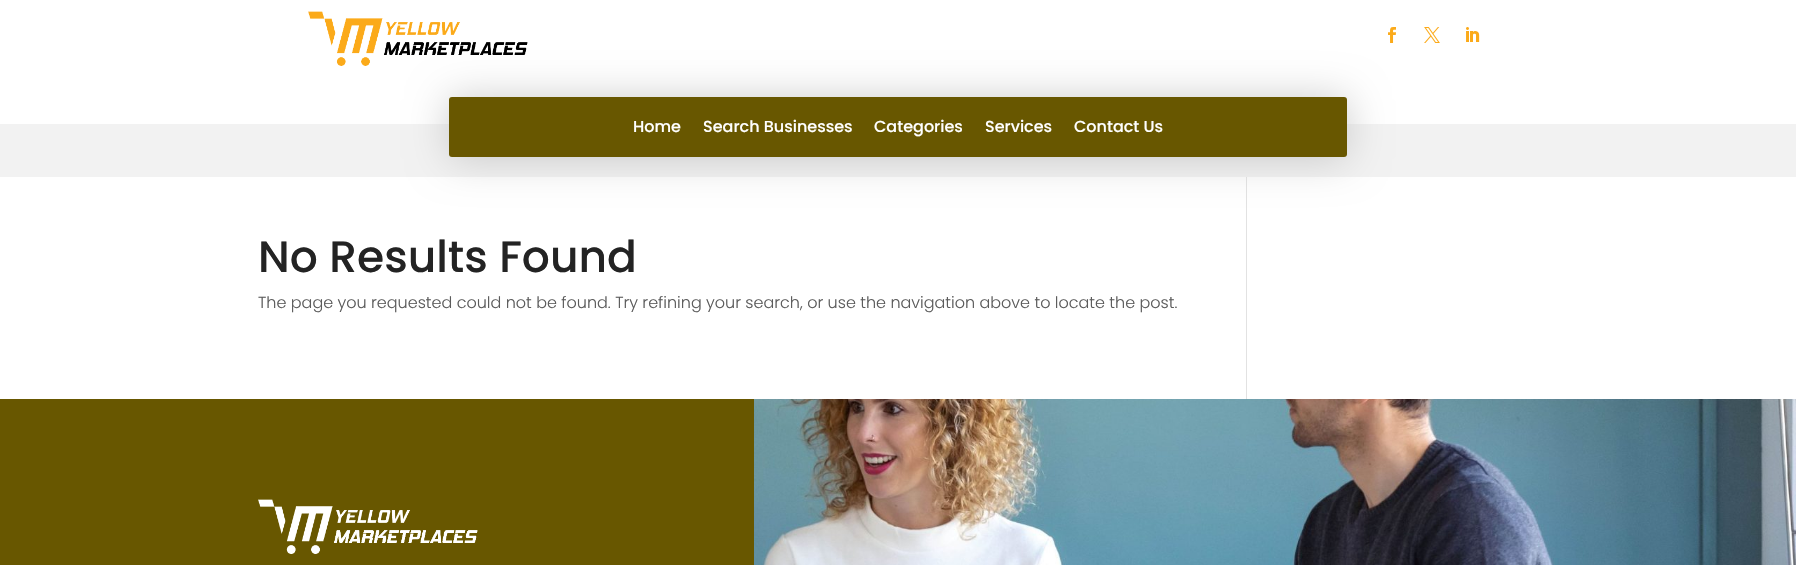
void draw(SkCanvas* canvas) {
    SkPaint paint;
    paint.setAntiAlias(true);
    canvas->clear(0xFFFFFFFF);
    paint.setColor(0xFFF2F2F2);
    canvas->drawRect(SkRect::MakeXYWH(0, 124, 1796, 53), paint);
    paint.setColor(0xFFE2E2E2);
    canvas->drawRect(SkRect::MakeXYWH(1246, 177, 1, 222), paint);
    paint.setColor(0xFFC9C9C9);
    paint.setMaskFilter(SkMaskFilter::MakeBlur(kNormal_SkBlurStyle, 20));
    canvas->drawRoundRect(SkRect::MakeXYWH(449, 99, 898, 60), 3, 3, paint);
    paint.setMaskFilter(nullptr);
    canvas->drawImageRect(SkImages::DeferredFromEncodedData(SkData::MakeFromFileName("img1.png")), SkRect::MakeXYWH(308, 11, 220, 55), SkSamplingOptions());
    canvas->drawImageRect(SkImages::DeferredFromEncodedData(SkData::MakeFromFileName("img2.png")), SkRect::MakeXYWH(1388, 27, 8, 16), SkSamplingOptions());
    canvas->drawImageRect(SkImages::DeferredFromEncodedData(SkData::MakeFromFileName("img3.png")), SkRect::MakeXYWH(1424, 27, 16, 16), SkSamplingOptions());
    canvas->drawImageRect(SkImages::DeferredFromEncodedData(SkData::MakeFromFileName("img4.png")), SkRect::MakeXYWH(1466, 27, 14, 15), SkSamplingOptions());
    paint.setColor(0xFF685700);
    canvas->drawRoundRect(SkRect::MakeXYWH(449, 97, 898, 60), 3, 3, paint);
    SkFont font1(fontMgr->matchFamilyStyle("Poppins", SkFontStyle(500, SkFontStyle::kNormal_Width, SkFontStyle::kUpright_Slant)), 16);
    font1.setSubpixel(true);
    paint.setColor(0xFFFFFFFF);
    canvas->drawString("Home", 633, 132, font1, paint);
    canvas->drawString("Search Businesses", 703, 132, font1, paint);
    canvas->drawString("Categories", 874, 132, font1, paint);
    canvas->drawString("Services", 985, 132, font1, paint);
    canvas->drawString("Contact Us", 1074, 132, font1, paint);
    SkFont font2(fontMgr->matchFamilyStyle("Poppins", SkFontStyle(500, SkFontStyle::kNormal_Width, SkFontStyle::kUpright_Slant)), 44);
    font2.setSubpixel(true);
    paint.setColor(0xFF232323);
    canvas->drawString("No Results Found", 258, 272, font2, paint);
    SkFont font3(fontMgr->matchFamilyStyle("Poppins", SkFontStyle(300, SkFontStyle::kNormal_Width, SkFontStyle::kUpright_Slant)), 16);
    font3.setSubpixel(true);
    paint.setColor(0xFF5B5B5B);
    canvas->drawString("The page you requested could not be found. Try refining your search, or use the navigation above to locate the post.", 258, 308, font3, paint);
    canvas->drawImageRect(SkImages::DeferredFromEncodedData(SkData::MakeFromFileName("img5.png")), SkRect::MakeXYWH(0, 399, 1796, 166), SkSamplingOptions());
    canvas->drawImageRect(SkImages::DeferredFromEncodedData(SkData::MakeFromFileName("img6.png")), SkRect::MakeXYWH(258, 499, 220, 55), SkSamplingOptions());
}
